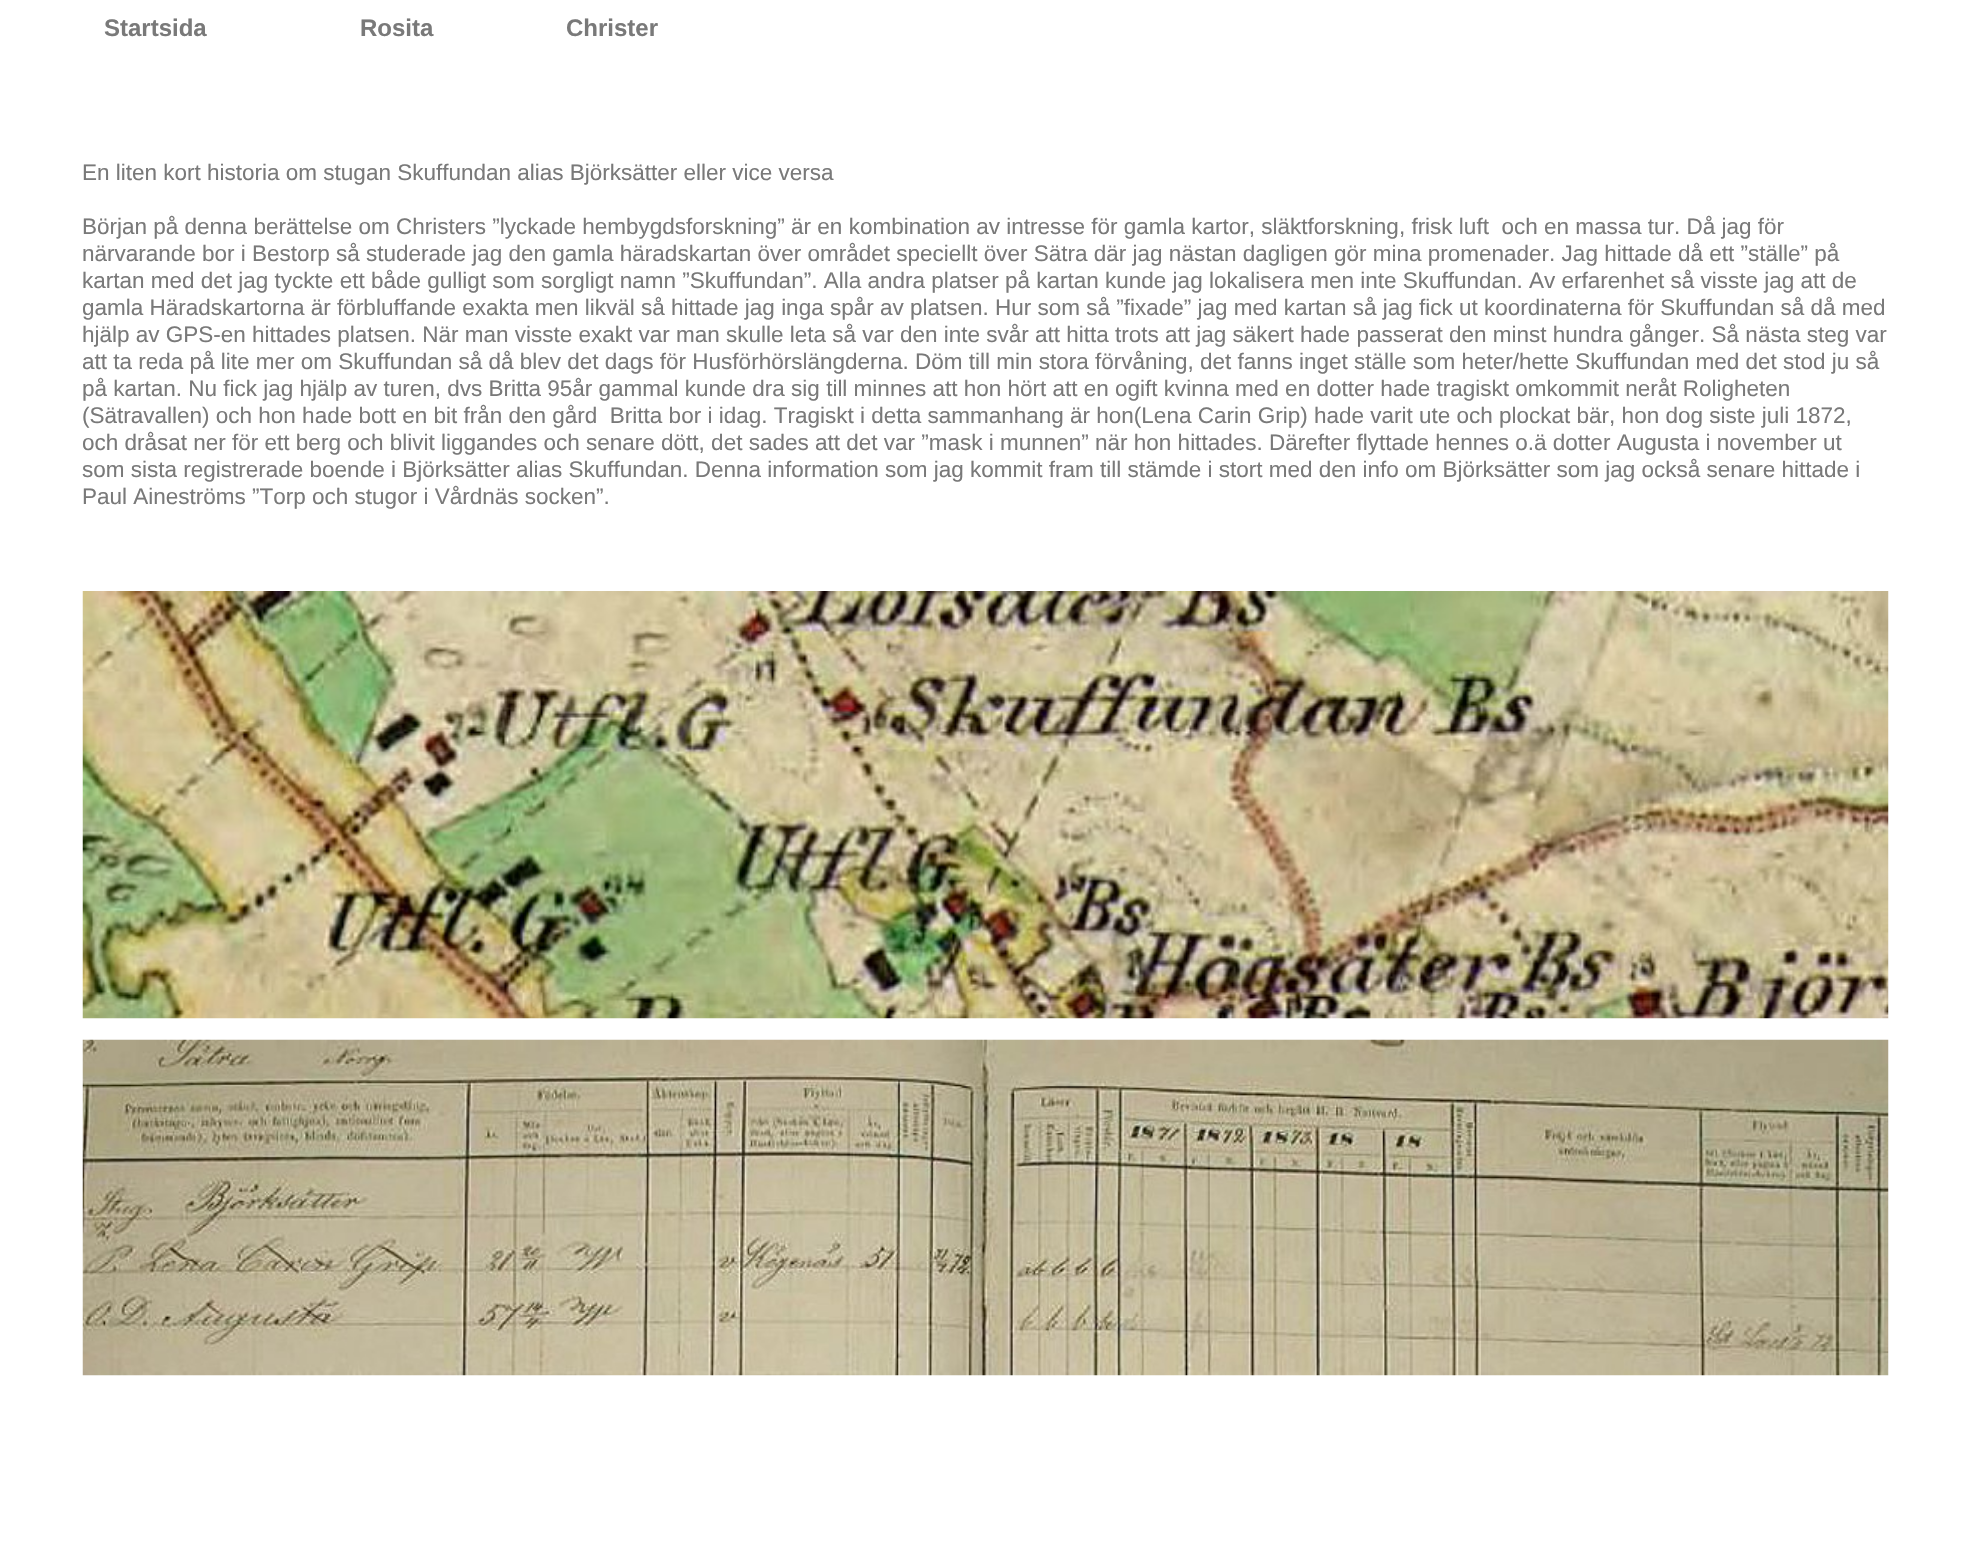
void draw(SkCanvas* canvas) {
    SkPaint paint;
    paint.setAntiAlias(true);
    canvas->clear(0xFFFFFFFF);
    SkFont font1(fontMgr->matchFamilyStyle("Liberation Sans", SkFontStyle::Bold()), 24);
    font1.setSubpixel(true);
    paint.setColor(0xFF797979);
    canvas->drawString("Startsida", 104, 36, font1, paint);
    canvas->drawString("Rosita", 360, 36, font1, paint);
    canvas->drawString("Christer", 566, 36, font1, paint);
    SkFont font2(fontMgr->matchFamilyStyle("Liberation Sans", SkFontStyle::Normal()), 22.5f);
    font2.setSubpixel(true);
    canvas->drawString("En liten kort historia om stugan Skuffundan alias Björksätter eller vice versa", 82, 180, font2, paint);
    canvas->drawString("Början på denna berättelse om Christers ”lyckade hembygdsforskning” är en kombination av intresse för gamla kartor, släktforskning, frisk luft  och en massa tur. Då jag för", 82, 234, font2, paint);
    canvas->drawString("närvarande bor i Bestorp så studerade jag den gamla häradskartan över området speciellt över Sätra där jag nästan dagligen gör mina promenader. Jag hittade då ett ”ställe” på", 82, 261, font2, paint);
    canvas->drawString("kartan med det jag tyckte ett både gulligt som sorgligt namn ”Skuffundan”. Alla andra platser på kartan kunde jag lokalisera men inte Skuffundan. Av erfarenhet så visste jag att de", 82, 288, font2, paint);
    canvas->drawString("gamla Häradskartorna är förbluffande exakta men likväl så hittade jag inga spår av platsen. Hur som så ”fixade” jag med kartan så jag fick ut koordinaterna för Skuffundan så då med", 82, 315, font2, paint);
    canvas->drawString("hjälp av GPS-en hittades platsen. När man visste exakt var man skulle leta så var den inte svår att hitta trots att jag säkert hade passerat den minst hundra gånger. Så nästa steg var", 82, 342, font2, paint);
    canvas->drawString("att ta reda på lite mer om Skuffundan så då blev det dags för Husförhörslängderna. Döm till min stora förvåning, det fanns inget ställe som heter/hette Skuffundan med det stod ju så", 82, 369, font2, paint);
    canvas->drawString("på kartan. Nu fick jag hjälp av turen, dvs Britta 95år gammal kunde dra sig till minnes att hon hört att en ogift kvinna med en dotter hade tragiskt omkommit neråt Roligheten", 82, 396, font2, paint);
    canvas->drawString("(Sätravallen) och hon hade bott en bit från den gård  Britta bor i idag. Tragiskt i detta sammanhang är hon(Lena Carin Grip) hade varit ute och plockat bär, hon dog siste juli 1872,", 82, 423, font2, paint);
    canvas->drawString("och dråsat ner för ett berg och blivit liggandes och senare dött, det sades att det var ”mask i munnen” när hon hittades. Därefter flyttade hennes o.ä dotter Augusta i november ut", 82, 450, font2, paint);
    canvas->drawString("som sista registrerade boende i Björksätter alias Skuffundan. Denna information som jag kommit fram till stämde i stort med den info om Björksätter som jag också senare hittade i", 82, 477, font2, paint);
    canvas->drawString("Paul Aineströms ”Torp och stugor i Vårdnäs socken”.", 82, 504, font2, paint);
    canvas->drawImageRect(SkImages::DeferredFromEncodedData(SkData::MakeFromFileName("img1.png")), SkRect::MakeXYWH(82, 591, 1807, 428), SkSamplingOptions());
    canvas->drawImageRect(SkImages::DeferredFromEncodedData(SkData::MakeFromFileName("img2.png")), SkRect::MakeXYWH(82, 1039, 1807, 337), SkSamplingOptions());
}
